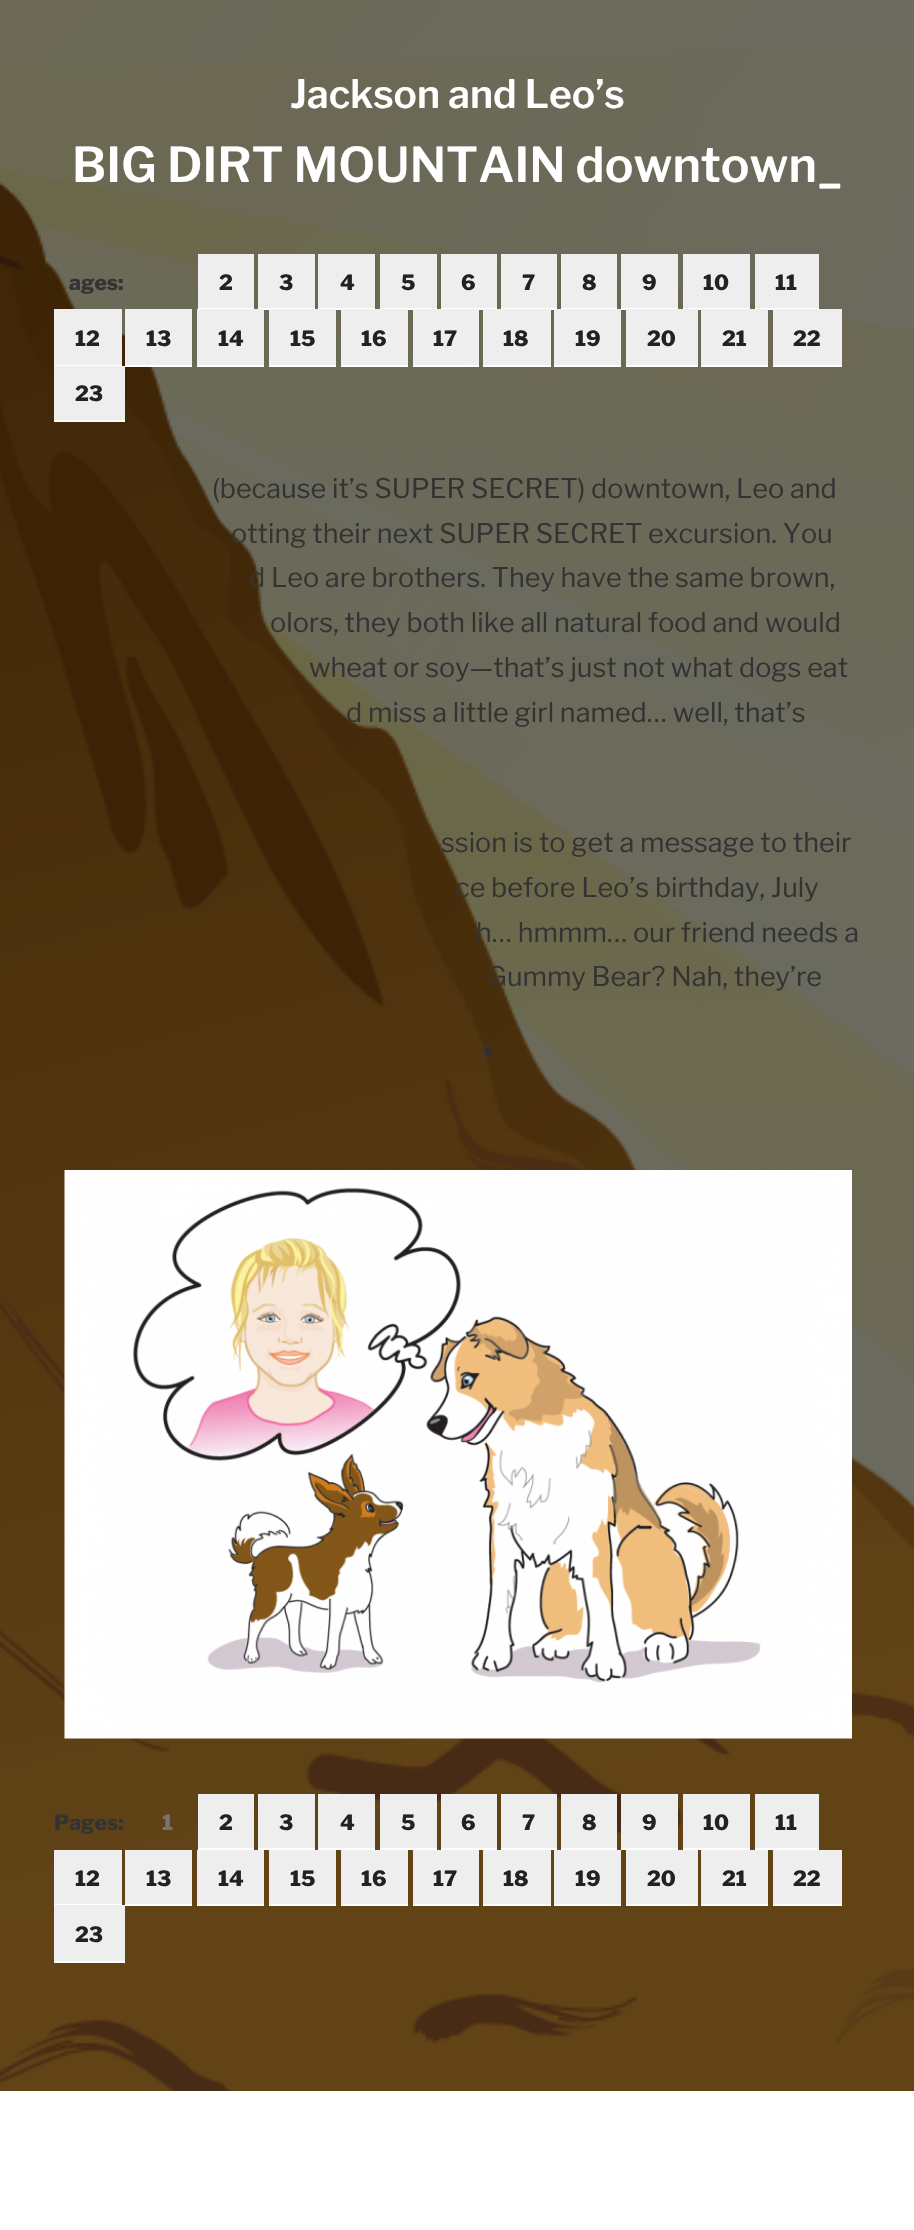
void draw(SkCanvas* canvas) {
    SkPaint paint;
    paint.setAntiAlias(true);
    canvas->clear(0xFFFFFFFF);
    canvas->drawImageRect(SkImages::DeferredFromEncodedData(SkData::MakeFromFileName("img1.png")), SkRect::MakeXYWH(0, 0, 914, 2091), SkSamplingOptions());
    SkFont font1(fontMgr->matchFamilyStyle("Libre Franklin", SkFontStyle(600, SkFontStyle::kNormal_Width, SkFontStyle::kUpright_Slant)), 39);
    font1.setSubpixel(true);
    paint.setColor(0xFFFFFFFF);
    canvas->drawString("Jackson and Leo’s", 290, 108, font1, paint);
    SkFont font2(fontMgr->matchFamilyStyle("Libre Franklin", SkFontStyle(600, SkFontStyle::kNormal_Width, SkFontStyle::kUpright_Slant)), 48);
    font2.setSubpixel(true);
    canvas->drawString("BIG DIRT MOUNTAIN downtown_", 72, 182, font2, paint);
    SkFont font3(fontMgr->matchFamilyStyle("Libre Franklin", SkFontStyle(800, SkFontStyle::kNormal_Width, SkFontStyle::kUpright_Slant)), 21);
    font3.setSubpixel(true);
    paint.setColor(0xFF333333);
    canvas->drawString("ages:", 69, 290, font3, paint);
    paint.setColor(0xFFEEEEEE);
    canvas->drawRect(SkRect::MakeXYWH(198, 254, 56, 54), paint);
    paint.setColor(0xFFFFFFFF);
    canvas->drawRect(SkRect::MakeXYWH(198, 308, 56, 1), paint);
    paint.setColor(0xFF222222);
    canvas->drawString("2", 219, 290, font3, paint);
    paint.setColor(0xFFEEEEEE);
    canvas->drawRect(SkRect::MakeXYWH(258, 254, 57, 54), paint);
    paint.setColor(0xFFFFFFFF);
    canvas->drawRect(SkRect::MakeXYWH(258, 308, 57, 2), paint);
    paint.setColor(0xFF222222);
    canvas->drawString("3", 279, 290, font3, paint);
    paint.setColor(0xFFEEEEEE);
    canvas->drawRect(SkRect::MakeXYWH(318, 254, 57, 54), paint);
    paint.setColor(0xFFFFFFFF);
    canvas->drawRect(SkRect::MakeXYWH(318, 308, 57, 2), paint);
    paint.setColor(0xFF222222);
    canvas->drawString("4", 340, 290, font3, paint);
    paint.setColor(0xFFEEEEEE);
    canvas->drawRect(SkRect::MakeXYWH(380, 254, 57, 54), paint);
    paint.setColor(0xFFFFFFFF);
    canvas->drawRect(SkRect::MakeXYWH(380, 308, 57, 2), paint);
    paint.setColor(0xFF222222);
    canvas->drawString("5", 401, 290, font3, paint);
    paint.setColor(0xFFEEEEEE);
    canvas->drawRect(SkRect::MakeXYWH(441, 254, 56, 54), paint);
    paint.setColor(0xFFFFFFFF);
    canvas->drawRect(SkRect::MakeXYWH(441, 308, 56, 2), paint);
    paint.setColor(0xFF222222);
    canvas->drawString("6", 461, 290, font3, paint);
    paint.setColor(0xFFEEEEEE);
    canvas->drawRect(SkRect::MakeXYWH(501, 254, 56, 54), paint);
    paint.setColor(0xFFFFFFFF);
    canvas->drawRect(SkRect::MakeXYWH(501, 308, 56, 2), paint);
    paint.setColor(0xFF222222);
    canvas->drawString("7", 522, 290, font3, paint);
    paint.setColor(0xFFEEEEEE);
    canvas->drawRect(SkRect::MakeXYWH(561, 254, 56, 54), paint);
    paint.setColor(0xFFFFFFFF);
    canvas->drawRect(SkRect::MakeXYWH(561, 308, 56, 1), paint);
    paint.setColor(0xFF222222);
    canvas->drawString("8", 582, 290, font3, paint);
    paint.setColor(0xFFEEEEEE);
    canvas->drawRect(SkRect::MakeXYWH(621, 254, 57, 54), paint);
    paint.setColor(0xFFFFFFFF);
    canvas->drawRect(SkRect::MakeXYWH(621, 308, 57, 2), paint);
    paint.setColor(0xFF222222);
    canvas->drawString("9", 642, 290, font3, paint);
    paint.setColor(0xFFEEEEEE);
    canvas->drawRect(SkRect::MakeXYWH(683, 254, 67, 54), paint);
    paint.setColor(0xFFFFFFFF);
    canvas->drawRect(SkRect::MakeXYWH(683, 308, 67, 2), paint);
    paint.setColor(0xFF222222);
    canvas->drawString("10", 703, 290, font3, paint);
    paint.setColor(0xFFEEEEEE);
    canvas->drawRect(SkRect::MakeXYWH(755, 254, 64, 54), paint);
    paint.setColor(0xFFFFFFFF);
    canvas->drawRect(SkRect::MakeXYWH(755, 308, 64, 2), paint);
    paint.setColor(0xFF222222);
    canvas->drawString("11", 775, 290, font3, paint);
    paint.setColor(0xFFEEEEEE);
    canvas->drawRect(SkRect::MakeXYWH(54, 309, 68, 56), paint);
    paint.setColor(0xFFFFFFFF);
    canvas->drawRect(SkRect::MakeXYWH(54, 365, 68, 1), paint);
    paint.setColor(0xFF222222);
    canvas->drawString("12", 75, 346, font3, paint);
    paint.setColor(0xFFEEEEEE);
    canvas->drawRect(SkRect::MakeXYWH(125, 309, 67, 56), paint);
    paint.setColor(0xFFFFFFFF);
    canvas->drawRect(SkRect::MakeXYWH(125, 365, 67, 2), paint);
    paint.setColor(0xFF222222);
    canvas->drawString("13", 146, 346, font3, paint);
    paint.setColor(0xFFEEEEEE);
    canvas->drawRect(SkRect::MakeXYWH(197, 309, 67, 56), paint);
    paint.setColor(0xFFFFFFFF);
    canvas->drawRect(SkRect::MakeXYWH(197, 365, 67, 2), paint);
    paint.setColor(0xFF222222);
    canvas->drawString("14", 218, 346, font3, paint);
    paint.setColor(0xFFEEEEEE);
    canvas->drawRect(SkRect::MakeXYWH(269, 309, 67, 56), paint);
    paint.setColor(0xFFFFFFFF);
    canvas->drawRect(SkRect::MakeXYWH(269, 365, 67, 2), paint);
    paint.setColor(0xFF222222);
    canvas->drawString("15", 290, 346, font3, paint);
    paint.setColor(0xFFEEEEEE);
    canvas->drawRect(SkRect::MakeXYWH(341, 309, 67, 56), paint);
    paint.setColor(0xFFFFFFFF);
    canvas->drawRect(SkRect::MakeXYWH(341, 365, 67, 2), paint);
    paint.setColor(0xFF222222);
    canvas->drawString("16", 361, 346, font3, paint);
    paint.setColor(0xFFEEEEEE);
    canvas->drawRect(SkRect::MakeXYWH(413, 309, 66, 56), paint);
    paint.setColor(0xFFFFFFFF);
    canvas->drawRect(SkRect::MakeXYWH(413, 365, 66, 2), paint);
    paint.setColor(0xFF222222);
    canvas->drawString("17", 433, 346, font3, paint);
    paint.setColor(0xFFEEEEEE);
    canvas->drawRect(SkRect::MakeXYWH(483, 309, 68, 56), paint);
    paint.setColor(0xFFFFFFFF);
    canvas->drawRect(SkRect::MakeXYWH(483, 365, 68, 2), paint);
    paint.setColor(0xFF222222);
    canvas->drawString("18", 503, 346, font3, paint);
    paint.setColor(0xFFEEEEEE);
    canvas->drawRect(SkRect::MakeXYWH(554, 309, 67, 56), paint);
    paint.setColor(0xFFFFFFFF);
    canvas->drawRect(SkRect::MakeXYWH(554, 365, 67, 2), paint);
    paint.setColor(0xFF222222);
    canvas->drawString("19", 575, 346, font3, paint);
    paint.setColor(0xFFEEEEEE);
    canvas->drawRect(SkRect::MakeXYWH(626, 309, 72, 56), paint);
    paint.setColor(0xFFFFFFFF);
    canvas->drawRect(SkRect::MakeXYWH(626, 365, 72, 2), paint);
    paint.setColor(0xFF222222);
    canvas->drawString("20", 647, 346, font3, paint);
    paint.setColor(0xFFEEEEEE);
    canvas->drawRect(SkRect::MakeXYWH(701, 309, 67, 56), paint);
    paint.setColor(0xFFFFFFFF);
    canvas->drawRect(SkRect::MakeXYWH(701, 365, 67, 2), paint);
    paint.setColor(0xFF222222);
    canvas->drawString("21", 722, 346, font3, paint);
    paint.setColor(0xFFEEEEEE);
    canvas->drawRect(SkRect::MakeXYWH(773, 309, 69, 56), paint);
    paint.setColor(0xFFFFFFFF);
    canvas->drawRect(SkRect::MakeXYWH(773, 365, 69, 2), paint);
    paint.setColor(0xFF222222);
    canvas->drawString("22", 793, 346, font3, paint);
    paint.setColor(0xFFEEEEEE);
    canvas->drawRect(SkRect::MakeXYWH(54, 366, 71, 54), paint);
    paint.setColor(0xFFFFFFFF);
    canvas->drawRect(SkRect::MakeXYWH(54, 420, 71, 2), paint);
    paint.setColor(0xFF222222);
    canvas->drawString("23", 75, 401, font3, paint);
    SkFont font4(fontMgr->matchFamilyStyle("Libre Franklin", SkFontStyle::Normal()), 27);
    font4.setSubpixel(true);
    paint.setColor(0xFF333333);
    canvas->drawString("(because it’s SUPER SECRET) downtown, Leo and", 212, 498, font4, paint);
    canvas->drawString("otting their next SUPER SECRET excursion. You", 231, 543, font4, paint);
    canvas->drawString("d Leo are brothers. They have the same brown,", 249, 587, font4, paint);
    canvas->drawString("olors, they both like all natural food and would", 270, 632, font4, paint);
    canvas->drawString("wheat or soy—that’s just not what dogs eat", 309, 677, font4, paint);
    canvas->drawString("d miss a little girl named… well, that’s", 346, 722, font4, paint);
    canvas->drawString("ssion is to get a message to their", 441, 852, font4, paint);
    canvas->drawString("ce before Leo’s birthday, July", 455, 897, font4, paint);
    canvas->drawString("h… hmmm… our friend needs a", 476, 942, font4, paint);
    canvas->drawString("Gummy Bear? Nah, they’re", 487, 986, font4, paint);
    canvas->drawImageRect(SkImages::DeferredFromEncodedData(SkData::MakeFromFileName("img2.png")), SkRect::MakeXYWH(64, 1170, 788, 569), SkSamplingOptions());
    canvas->drawString("Pages:", 54, 1830, font3, paint);
    paint.setColor(0xFF767676);
    canvas->drawString("1", 162, 1830, font3, paint);
    paint.setColor(0xFFEEEEEE);
    canvas->drawRect(SkRect::MakeXYWH(198, 1794, 56, 54), paint);
    paint.setColor(0xFFFFFFFF);
    canvas->drawRect(SkRect::MakeXYWH(198, 1848, 56, 2), paint);
    paint.setColor(0xFF222222);
    canvas->drawString("2", 219, 1830, font3, paint);
    paint.setColor(0xFFEEEEEE);
    canvas->drawRect(SkRect::MakeXYWH(258, 1794, 57, 54), paint);
    paint.setColor(0xFFFFFFFF);
    canvas->drawRect(SkRect::MakeXYWH(258, 1848, 57, 2), paint);
    paint.setColor(0xFF222222);
    canvas->drawString("3", 279, 1830, font3, paint);
    paint.setColor(0xFFEEEEEE);
    canvas->drawRect(SkRect::MakeXYWH(318, 1794, 57, 54), paint);
    paint.setColor(0xFFFFFFFF);
    canvas->drawRect(SkRect::MakeXYWH(318, 1848, 57, 2), paint);
    paint.setColor(0xFF222222);
    canvas->drawString("4", 340, 1830, font3, paint);
    paint.setColor(0xFFEEEEEE);
    canvas->drawRect(SkRect::MakeXYWH(380, 1794, 57, 54), paint);
    paint.setColor(0xFFFFFFFF);
    canvas->drawRect(SkRect::MakeXYWH(380, 1848, 57, 2), paint);
    paint.setColor(0xFF222222);
    canvas->drawString("5", 401, 1830, font3, paint);
    paint.setColor(0xFFEEEEEE);
    canvas->drawRect(SkRect::MakeXYWH(441, 1794, 56, 54), paint);
    paint.setColor(0xFFFFFFFF);
    canvas->drawRect(SkRect::MakeXYWH(441, 1848, 56, 2), paint);
    paint.setColor(0xFF222222);
    canvas->drawString("6", 461, 1830, font3, paint);
    paint.setColor(0xFFEEEEEE);
    canvas->drawRect(SkRect::MakeXYWH(501, 1794, 56, 54), paint);
    paint.setColor(0xFFFFFFFF);
    canvas->drawRect(SkRect::MakeXYWH(501, 1848, 56, 2), paint);
    paint.setColor(0xFF222222);
    canvas->drawString("7", 522, 1830, font3, paint);
    paint.setColor(0xFFEEEEEE);
    canvas->drawRect(SkRect::MakeXYWH(561, 1794, 56, 54), paint);
    paint.setColor(0xFFFFFFFF);
    canvas->drawRect(SkRect::MakeXYWH(561, 1848, 56, 2), paint);
    paint.setColor(0xFF222222);
    canvas->drawString("8", 582, 1830, font3, paint);
    paint.setColor(0xFFEEEEEE);
    canvas->drawRect(SkRect::MakeXYWH(621, 1794, 57, 54), paint);
    paint.setColor(0xFFFFFFFF);
    canvas->drawRect(SkRect::MakeXYWH(621, 1848, 57, 2), paint);
    paint.setColor(0xFF222222);
    canvas->drawString("9", 642, 1830, font3, paint);
    paint.setColor(0xFFEEEEEE);
    canvas->drawRect(SkRect::MakeXYWH(683, 1794, 67, 54), paint);
    paint.setColor(0xFFFFFFFF);
    canvas->drawRect(SkRect::MakeXYWH(683, 1848, 67, 2), paint);
    paint.setColor(0xFF222222);
    canvas->drawString("10", 703, 1830, font3, paint);
    paint.setColor(0xFFEEEEEE);
    canvas->drawRect(SkRect::MakeXYWH(755, 1794, 64, 54), paint);
    paint.setColor(0xFFFFFFFF);
    canvas->drawRect(SkRect::MakeXYWH(755, 1848, 64, 2), paint);
    paint.setColor(0xFF222222);
    canvas->drawString("11", 775, 1830, font3, paint);
    paint.setColor(0xFFEEEEEE);
    canvas->drawRect(SkRect::MakeXYWH(54, 1850, 68, 54), paint);
    paint.setColor(0xFFFFFFFF);
    canvas->drawRect(SkRect::MakeXYWH(54, 1904, 68, 1), paint);
    paint.setColor(0xFF222222);
    canvas->drawString("12", 75, 1886, font3, paint);
    paint.setColor(0xFFEEEEEE);
    canvas->drawRect(SkRect::MakeXYWH(125, 1850, 67, 54), paint);
    paint.setColor(0xFFFFFFFF);
    canvas->drawRect(SkRect::MakeXYWH(125, 1904, 67, 2), paint);
    paint.setColor(0xFF222222);
    canvas->drawString("13", 146, 1886, font3, paint);
    paint.setColor(0xFFEEEEEE);
    canvas->drawRect(SkRect::MakeXYWH(197, 1850, 67, 54), paint);
    paint.setColor(0xFFFFFFFF);
    canvas->drawRect(SkRect::MakeXYWH(197, 1904, 67, 2), paint);
    paint.setColor(0xFF222222);
    canvas->drawString("14", 218, 1886, font3, paint);
    paint.setColor(0xFFEEEEEE);
    canvas->drawRect(SkRect::MakeXYWH(269, 1850, 67, 54), paint);
    paint.setColor(0xFFFFFFFF);
    canvas->drawRect(SkRect::MakeXYWH(269, 1904, 67, 2), paint);
    paint.setColor(0xFF222222);
    canvas->drawString("15", 290, 1886, font3, paint);
    paint.setColor(0xFFEEEEEE);
    canvas->drawRect(SkRect::MakeXYWH(341, 1850, 67, 54), paint);
    paint.setColor(0xFFFFFFFF);
    canvas->drawRect(SkRect::MakeXYWH(341, 1904, 67, 2), paint);
    paint.setColor(0xFF222222);
    canvas->drawString("16", 361, 1886, font3, paint);
    paint.setColor(0xFFEEEEEE);
    canvas->drawRect(SkRect::MakeXYWH(413, 1850, 66, 54), paint);
    paint.setColor(0xFFFFFFFF);
    canvas->drawRect(SkRect::MakeXYWH(413, 1904, 66, 2), paint);
    paint.setColor(0xFF222222);
    canvas->drawString("17", 433, 1886, font3, paint);
    paint.setColor(0xFFEEEEEE);
    canvas->drawRect(SkRect::MakeXYWH(483, 1850, 68, 54), paint);
    paint.setColor(0xFFFFFFFF);
    canvas->drawRect(SkRect::MakeXYWH(483, 1904, 68, 2), paint);
    paint.setColor(0xFF222222);
    canvas->drawString("18", 503, 1886, font3, paint);
    paint.setColor(0xFFEEEEEE);
    canvas->drawRect(SkRect::MakeXYWH(554, 1850, 67, 54), paint);
    paint.setColor(0xFFFFFFFF);
    canvas->drawRect(SkRect::MakeXYWH(554, 1904, 67, 2), paint);
    paint.setColor(0xFF222222);
    canvas->drawString("19", 575, 1886, font3, paint);
    paint.setColor(0xFFEEEEEE);
    canvas->drawRect(SkRect::MakeXYWH(626, 1850, 72, 54), paint);
    paint.setColor(0xFFFFFFFF);
    canvas->drawRect(SkRect::MakeXYWH(626, 1904, 72, 2), paint);
    paint.setColor(0xFF222222);
    canvas->drawString("20", 647, 1886, font3, paint);
    paint.setColor(0xFFEEEEEE);
    canvas->drawRect(SkRect::MakeXYWH(701, 1850, 67, 54), paint);
    paint.setColor(0xFFFFFFFF);
    canvas->drawRect(SkRect::MakeXYWH(701, 1904, 67, 2), paint);
    paint.setColor(0xFF222222);
    canvas->drawString("21", 722, 1886, font3, paint);
    paint.setColor(0xFFEEEEEE);
    canvas->drawRect(SkRect::MakeXYWH(773, 1850, 69, 54), paint);
    paint.setColor(0xFFFFFFFF);
    canvas->drawRect(SkRect::MakeXYWH(773, 1904, 69, 2), paint);
    paint.setColor(0xFF222222);
    canvas->drawString("22", 793, 1886, font3, paint);
    paint.setColor(0xFFEEEEEE);
    canvas->drawRect(SkRect::MakeXYWH(54, 1905, 71, 56), paint);
    paint.setColor(0xFFFFFFFF);
    canvas->drawRect(SkRect::MakeXYWH(54, 1961, 71, 2), paint);
    paint.setColor(0xFF222222);
    canvas->drawString("23", 75, 1942, font3, paint);
}
